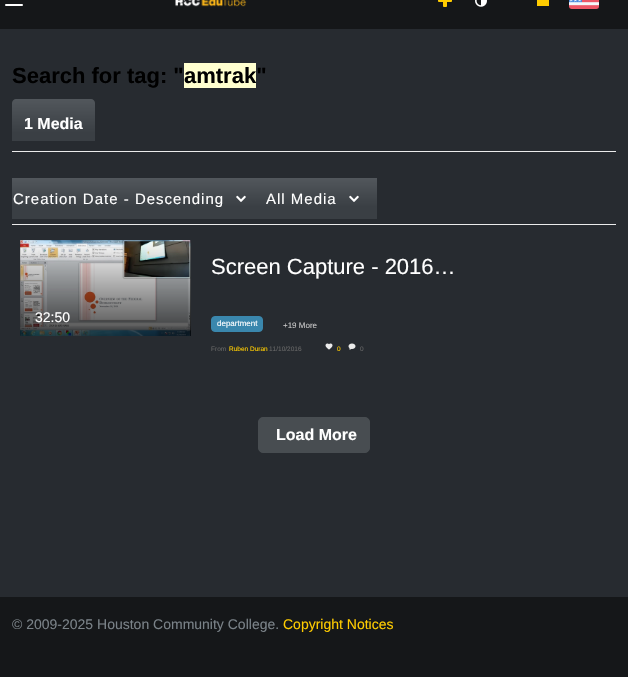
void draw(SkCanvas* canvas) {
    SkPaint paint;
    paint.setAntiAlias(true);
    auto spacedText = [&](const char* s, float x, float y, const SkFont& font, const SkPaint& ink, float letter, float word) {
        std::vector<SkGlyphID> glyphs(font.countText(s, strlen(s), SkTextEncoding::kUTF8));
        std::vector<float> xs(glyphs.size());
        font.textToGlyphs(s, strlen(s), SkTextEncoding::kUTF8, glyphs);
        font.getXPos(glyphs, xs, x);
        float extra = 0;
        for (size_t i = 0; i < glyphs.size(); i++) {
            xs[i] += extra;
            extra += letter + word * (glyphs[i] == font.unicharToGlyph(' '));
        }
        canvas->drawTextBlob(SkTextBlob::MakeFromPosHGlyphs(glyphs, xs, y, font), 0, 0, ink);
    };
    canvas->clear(0xFF272B30);
    paint.setColor(0xFF151719);
    canvas->drawRect(SkRect::MakeXYWH(0, 0, 628, 29), paint);
    paint.setColor(0xFFFFFFFF);
    canvas->drawRoundRect(SkRect::MakeXYWH(5, 4, 18, 2), 1, 1, paint);
    canvas->drawImageRect(SkImages::DeferredFromEncodedData(SkData::MakeFromFileName("img1.png")), SkRect::MakeXYWH(175, 0, 72, 7), SkSamplingOptions());
    canvas->drawImageRect(SkImages::DeferredFromEncodedData(SkData::MakeFromFileName("img2.png")), SkRect::MakeXYWH(438, 0, 14, 7), SkSamplingOptions());
    canvas->drawImageRect(SkImages::DeferredFromEncodedData(SkData::MakeFromFileName("img3.png")), SkRect::MakeXYWH(475, 0, 12, 7), SkSamplingOptions());
    paint.setColor(0xFFFFCC00);
    canvas->drawRect(SkRect::MakeXYWH(537, 0, 12, 6), paint);
    canvas->drawImageRect(SkImages::DeferredFromEncodedData(SkData::MakeFromFileName("img4.png")), SkRect::MakeXYWH(569, 0, 30, 9), SkSamplingOptions());
    SkFont font1(fontMgr->matchFamilyStyle("Liberation Sans", SkFontStyle::Bold()), 22);
    font1.setSubpixel(true);
    paint.setColor(0xFF000000);
    canvas->drawString("Search for tag: \"", 12, 83, font1, paint);
    paint.setColor(0xFFFFFFCF);
    canvas->drawRect(SkRect::MakeXYWH(184, 63, 72, 25), paint);
    paint.setColor(0xFF000000);
    canvas->drawString("amtrak\"", 184, 83, font1, paint);
    paint.setColor(0xFFEBEBEB);
    canvas->drawRect(SkRect::MakeXYWH(12, 151, 604, 1), paint);
    {
        const SkColor colors[] = {0xFF52575C, 0xFF3A3F44, 0xFF3A3F44};
        const float stops[] = {0, 0.7f, 1};
        const SkPoint ends[] = {{54, 99}, {54, 147}};
        paint.setShader(SkGradientShader::MakeLinear(ends, colors, stops, 3, SkTileMode::kClamp));
        paint.setAlpha(255);
    }
    canvas->drawPath(SkPathBuilder().moveTo(16, 99).lineTo(91, 99).cubicTo(93, 99, 95, 101, 95, 103).lineTo(95, 141).lineTo(12, 141).lineTo(12, 103).cubicTo(12, 101, 14, 99, 16, 99).close().detach(), paint);
    SkFont font2(fontMgr->matchFamilyStyle("Liberation Sans", SkFontStyle::Bold()), 16);
    font2.setSubpixel(true);
    paint.setShader(nullptr);
    paint.setColor(0xFFFFFFFF);
    canvas->drawString("1 Media", 24, 129, font2, paint);
    {
        const SkColor colors[] = {0xFF52575C, 0xFF3A3F44, 0xFF3A3F44};
        const float stops[] = {0, 0.7f, 1};
        const SkPoint ends[] = {{136, 178}, {136, 219}};
        paint.setShader(SkGradientShader::MakeLinear(ends, colors, stops, 3, SkTileMode::kClamp));
        paint.setAlpha(255);
    }
    canvas->drawRect(SkRect::MakeXYWH(12, 178, 249, 41), paint);
    SkFont font3(fontMgr->matchFamilyStyle("Liberation Sans", SkFontStyle::Normal()), 15);
    font3.setSubpixel(true);
    paint.setShader(nullptr);
    paint.setColor(0xFFFFFFFF);
    spacedText("Creation Date - Descending", 13, 204, font3, paint, 1, 0);
    canvas->drawImageRect(SkImages::DeferredFromEncodedData(SkData::MakeFromFileName("img5.png")), SkRect::MakeXYWH(236, 195, 10, 7), SkSamplingOptions());
    {
        const SkColor colors[] = {0xFF52575C, 0xFF3A3F44, 0xFF3A3F44};
        const float stops[] = {0, 0.7f, 1};
        const SkPoint ends[] = {{319, 178}, {319, 219}};
        paint.setShader(SkGradientShader::MakeLinear(ends, colors, stops, 3, SkTileMode::kClamp));
        paint.setAlpha(255);
    }
    canvas->drawRect(SkRect::MakeXYWH(261, 178, 116, 41), paint);
    paint.setShader(nullptr);
    paint.setColor(0xFFFFFFFF);
    spacedText("All Media", 266, 204, font3, paint, 1, 0);
    canvas->drawImageRect(SkImages::DeferredFromEncodedData(SkData::MakeFromFileName("img5.png")), SkRect::MakeXYWH(349, 195, 10, 7), SkSamplingOptions());
    canvas->drawImageRect(SkImages::DeferredFromEncodedData(SkData::MakeFromFileName("img6.png")), SkRect::MakeXYWH(20, 240, 171, 96), SkSamplingOptions());
    SkFont font4(fontMgr->matchFamilyStyle("Liberation Sans", SkFontStyle::Normal()), 14);
    font4.setSubpixel(true);
    canvas->drawString("32:50", 35, 322, font4, paint);
    paint.setColor(0xFFEBEBEB);
    canvas->drawRect(SkRect::MakeXYWH(12, 224, 604, 1), paint);
    SkFont font5(fontMgr->matchFamilyStyle("Liberation Sans", SkFontStyle::Normal()), 22);
    font5.setSubpixel(true);
    paint.setColor(0xFFFFFFFF);
    canvas->drawString("Screen Capture - 2016…", 211, 274, font5, paint);
    paint.setColor(0xFF3A87AD);
    canvas->drawRoundRect(SkRect::MakeXYWH(211.5f, 316.5f, 51, 15), 3.5f, 3.5f, paint);
    paint.setStyle(SkPaint::kStroke_Style);
    paint.setStrokeWidth(1);
    canvas->drawRoundRect(SkRect::MakeXYWH(211.5f, 316.5f, 51, 15), 3.5f, 3.5f, paint);
    SkFont font6(fontMgr->matchFamilyStyle("Liberation Sans", SkFontStyle::Normal()), 8);
    font6.setSubpixel(true);
    paint.setStyle(SkPaint::kFill_Style);
    paint.setColor(0xFFFFFFFF);
    canvas->drawString("department", 217, 326, font6, paint);
    paint.setColor(0xFFC8C8C8);
    canvas->drawString("+19 More", 283, 328, font6, paint);
    SkFont font7(fontMgr->matchFamilyStyle("Liberation Sans", SkFontStyle::Normal()), 6.5f);
    font7.setSubpixel(true);
    paint.setColor(0xFF666666);
    canvas->drawString("From", 211, 351, font7, paint);
    paint.setColor(0xFFFFCC00);
    canvas->drawString("Ruben Duran", 229, 351, font7, paint);
    paint.setColor(0xFF666666);
    canvas->drawString("11/10/2016", 269, 351, font7, paint);
    canvas->drawImageRect(SkImages::DeferredFromEncodedData(SkData::MakeFromFileName("img7.png")), SkRect::MakeXYWH(325, 343, 8, 7), SkSamplingOptions());
    paint.setColor(0xFFFFCC00);
    canvas->drawString("0", 337, 351, font7, paint);
    canvas->drawImageRect(SkImages::DeferredFromEncodedData(SkData::MakeFromFileName("img8.png")), SkRect::MakeXYWH(348, 343, 8, 7), SkSamplingOptions());
    paint.setColor(0xFF666666);
    canvas->drawString("0", 360, 351, font7, paint);
    paint.setColor(0xFF484D51);
    canvas->drawRoundRect(SkRect::MakeXYWH(258.5f, 417.5f, 111, 35), 4.5f, 4.5f, paint);
    paint.setStyle(SkPaint::kStroke_Style);
    canvas->drawRoundRect(SkRect::MakeXYWH(258.5f, 417.5f, 111, 35), 4.5f, 4.5f, paint);
    paint.setStyle(SkPaint::kFill_Style);
    paint.setColor(0xFFFFFFFF);
    canvas->drawString("Load More", 276, 440, font2, paint);
    paint.setColor(0xFF151719);
    canvas->drawRect(SkRect::MakeXYWH(0, 597, 628, 80), paint);
    paint.setColor(0xFF7A8288);
    canvas->drawString("© 2009-2025 Houston Community College.", 12, 629, font4, paint);
    paint.setColor(0xFFFFCC00);
    canvas->drawString("Copyright Notices", 283, 629, font4, paint);
}
